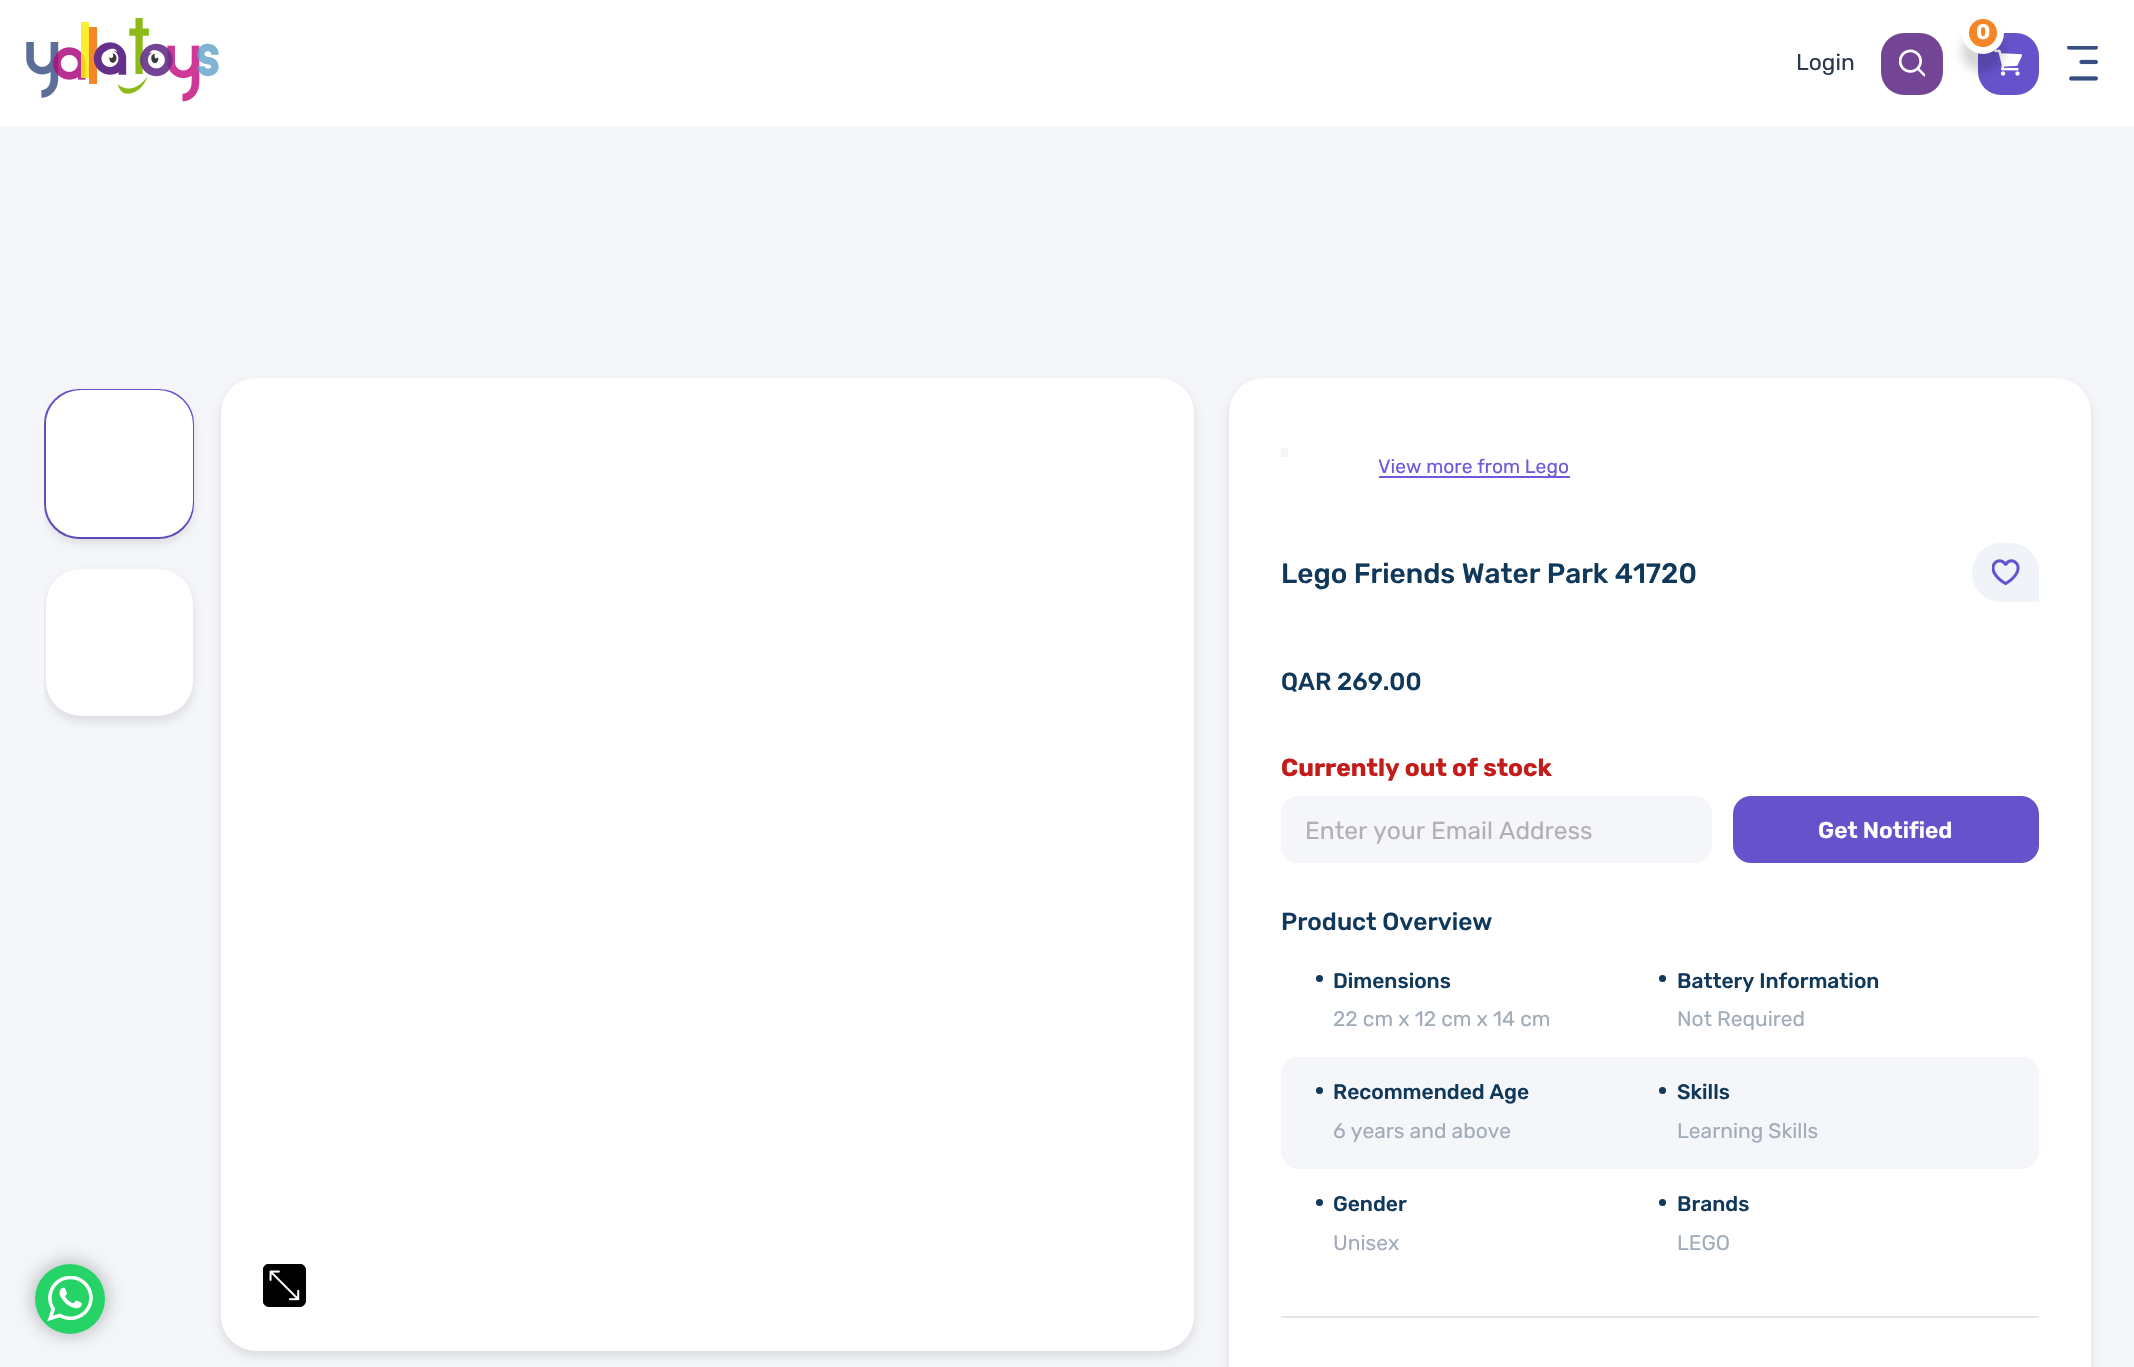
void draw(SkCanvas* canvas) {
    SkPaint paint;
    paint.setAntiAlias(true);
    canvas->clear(0xFFF4F6FA);
    paint.setColor(0xFFFFFFFF);
    canvas->drawRect(SkRect::MakeXYWH(0, 0, 2134, 126), paint);
    canvas->drawImageRect(SkImages::DeferredFromEncodedData(SkData::MakeFromFileName("img1.png")), SkRect::MakeXYWH(26, 18, 193, 84), SkSamplingOptions());
    SkFont font1(fontMgr->matchFamilyStyle("Rubik", SkFontStyle::Normal()), 22.75f);
    font1.setSubpixel(true);
    paint.setColor(0xFF2E394E);
    canvas->drawString("Login", 1796, 70, font1, paint);
    paint.setColor(0xFF744495);
    canvas->drawRoundRect(SkRect::MakeXYWH(1881, 33, 62, 62), 23, 23, paint);
    canvas->drawImageRect(SkImages::DeferredFromEncodedData(SkData::MakeFromFileName("img2.png")), SkRect::MakeXYWH(1899, 49, 26, 28), SkSamplingOptions());
    paint.setColor(0xFF6653CB);
    canvas->drawRoundRect(SkRect::MakeXYWH(1978, 33, 61, 62), 23, 23, paint);
    canvas->drawImageRect(SkImages::DeferredFromEncodedData(SkData::MakeFromFileName("img3.png")), SkRect::MakeXYWH(1994, 49, 28, 27), SkSamplingOptions());
    paint.setColor(0x29000000);
    paint.setMaskFilter(SkMaskFilter::MakeBlur(kNormal_SkBlurStyle, 5));
    canvas->drawRoundRect(SkRect::MakeXYWH(1962, 30, 42, 42), 21, 21, paint);
    paint.setMaskFilter(nullptr);
    paint.setColor(0xFFF58626);
    canvas->drawCircle(1983, 33, 17.5f, paint);
    paint.setStyle(SkPaint::kStroke_Style);
    paint.setStrokeWidth(7);
    paint.setColor(0xFFFFFFFF);
    canvas->drawCircle(1983, 33, 17.5f, paint);
    SkFont font2(fontMgr->matchFamilyStyle("Rubik", SkFontStyle::Bold()), 21);
    font2.setSubpixel(true);
    paint.setStyle(SkPaint::kFill_Style);
    canvas->drawString("0", 1976, 39, font2, paint);
    canvas->drawImageRect(SkImages::DeferredFromEncodedData(SkData::MakeFromFileName("img4.png")), SkRect::MakeXYWH(2067, 46, 31, 35), SkSamplingOptions());
    paint.setStyle(SkPaint::kStroke_Style);
    paint.setStrokeWidth(2);
    paint.setColor(0xFF6653CB);
    canvas->drawRoundRect(SkRect::MakeXYWH(45, 390, 148, 148), 34, 34, paint);
    canvas->save();
    canvas->clipRect(SkRect::MakeXYWH(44, 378, 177, 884));
    paint.setStyle(SkPaint::kFill_Style);
    paint.setColor(0x1C000000);
    paint.setMaskFilter(SkMaskFilter::MakeBlur(kNormal_SkBlurStyle, 5));
    canvas->drawRoundRect(SkRect::MakeXYWH(46, 396, 147, 147), 35, 35, paint);
    paint.setMaskFilter(nullptr);
    canvas->restore();
    paint.setColor(0xFFFFFFFF);
    canvas->drawRoundRect(SkRect::MakeXYWH(46, 390, 147, 147), 35, 35, paint);
    canvas->save();
    canvas->clipRect(SkRect::MakeXYWH(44, 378, 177, 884));
    paint.setColor(0x1C000000);
    paint.setMaskFilter(SkMaskFilter::MakeBlur(kNormal_SkBlurStyle, 5));
    canvas->drawRoundRect(SkRect::MakeXYWH(46, 574, 147, 147), 35, 35, paint);
    paint.setMaskFilter(nullptr);
    canvas->restore();
    paint.setColor(0xFFFFFFFF);
    canvas->drawRoundRect(SkRect::MakeXYWH(46, 569, 147, 147), 35, 35, paint);
    paint.setColor(0x1C000000);
    paint.setMaskFilter(SkMaskFilter::MakeBlur(kNormal_SkBlurStyle, 5));
    canvas->drawRoundRect(SkRect::MakeXYWH(221, 383, 973, 973), 35, 35, paint);
    paint.setMaskFilter(nullptr);
    paint.setColor(0xFFFFFFFF);
    canvas->drawRoundRect(SkRect::MakeXYWH(221, 378, 973, 973), 35, 35, paint);
    canvas->drawImageRect(SkImages::DeferredFromEncodedData(SkData::MakeFromFileName("img5.png")), SkRect::MakeXYWH(263, 1264, 43, 43), SkSamplingOptions());
    paint.setColor(0x1C000000);
    paint.setMaskFilter(SkMaskFilter::MakeBlur(kNormal_SkBlurStyle, 5));
    canvas->drawRoundRect(SkRect::MakeXYWH(1229, 383, 862, 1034), 35, 35, paint);
    paint.setMaskFilter(nullptr);
    paint.setColor(0xFFFFFFFF);
    canvas->drawRoundRect(SkRect::MakeXYWH(1229, 378, 862, 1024), 35, 35, paint);
    paint.setColor(0xFFF4F5F5);
    canvas->drawRect(SkRect::MakeXYWH(1281, 448, 7, 9), paint);
    paint.setColor(0xFF6E59DA);
    canvas->drawRect(SkRect::MakeXYWH(1379, 476, 191, 2), paint);
    SkFont font3(fontMgr->matchFamilyStyle("Rubik", SkFontStyle::Normal()), 19.25f);
    font3.setSubpixel(true);
    canvas->drawString("View more from Lego", 1378, 473, font3, paint);
    SkFont font4(fontMgr->matchFamilyStyle("Rubik", SkFontStyle(500, SkFontStyle::kNormal_Width, SkFontStyle::kUpright_Slant)), 28);
    font4.setSubpixel(true);
    paint.setColor(0xFF0F385B);
    canvas->drawString("Lego Friends Water Park 41720", 1281, 583, font4, paint);
    paint.setColor(0xFFF0F3F7);
    canvas->drawPath(SkPathBuilder().moveTo(2001.5f, 543).lineTo(2009.5f, 543).cubicTo(2026, 543, 2039, 556, 2039, 572.5f).lineTo(2039, 602).lineTo(2001.5f, 602).cubicTo(1985, 602, 1972, 589, 1972, 572.5f).cubicTo(1972, 556, 1985, 543, 2001.5f, 543).close().detach(), paint);
    canvas->drawImageRect(SkImages::DeferredFromEncodedData(SkData::MakeFromFileName("img6.png")), SkRect::MakeXYWH(1992, 559, 28, 27), SkSamplingOptions());
    SkFont font5(fontMgr->matchFamilyStyle("Rubik", SkFontStyle(500, SkFontStyle::kNormal_Width, SkFontStyle::kUpright_Slant)), 24.5f);
    font5.setSubpixel(true);
    paint.setColor(0xFF0F385B);
    canvas->drawString("QAR 269.00", 1281, 690, font5, paint);
    SkFont font6(fontMgr->matchFamilyStyle("Rubik", SkFontStyle::Bold()), 24.5f);
    font6.setSubpixel(true);
    paint.setColor(0xFFC31C1B);
    canvas->drawString("Currently out of stock", 1281, 776, font6, paint);
    paint.setColor(0xFFF4F6FA);
    canvas->drawRoundRect(SkRect::MakeXYWH(1281, 796, 431, 67), 18, 18, paint);
    canvas->drawPath(SkPathBuilder(SkPathFillType::kEvenOdd).moveTo(1298, 796).lineTo(1694, 796).cubicTo(1704, 796, 1712, 804, 1712, 814).lineTo(1712, 845).cubicTo(1712, 855, 1704, 863, 1694, 863).lineTo(1298, 863).cubicTo(1289, 863, 1281, 855, 1281, 845).lineTo(1281, 814).cubicTo(1281, 804, 1289, 796, 1298, 796).close().moveTo(1298, 798).lineTo(1694, 798).cubicTo(1703, 798, 1710, 805, 1710, 814).lineTo(1710, 845).cubicTo(1710, 855, 1703, 863, 1694, 863).lineTo(1298, 863).cubicTo(1290, 863, 1283, 855, 1283, 845).lineTo(1283, 814).cubicTo(1283, 805, 1290, 798, 1298, 798).close().detach(), paint);
    SkFont font7(fontMgr->matchFamilyStyle("Rubik", SkFontStyle::Normal()), 24.5f);
    font7.setSubpixel(true);
    paint.setColor(0xFFB1B1B1);
    canvas->drawString("Enter your Email Address", 1305, 839, font7, paint);
    paint.setColor(0xFF6653CB);
    canvas->drawRoundRect(SkRect::MakeXYWH(1733, 796, 306, 67), 18, 18, paint);
    SkFont font8(fontMgr->matchFamilyStyle("Rubik", SkFontStyle(600, SkFontStyle::kNormal_Width, SkFontStyle::kUpright_Slant)), 22.75f);
    font8.setSubpixel(true);
    paint.setColor(0xFFFFFFFF);
    canvas->drawString("Get Notified", 1818, 838, font8, paint);
    paint.setColor(0xFF0F385B);
    canvas->drawString("Product Overview", 1281, 930, font5, paint);
    canvas->drawCircle(1319.5f, 978.5f, 3.5f, paint);
    SkFont font9(fontMgr->matchFamilyStyle("Rubik", SkFontStyle(500, SkFontStyle::kNormal_Width, SkFontStyle::kUpright_Slant)), 21);
    font9.setSubpixel(true);
    canvas->drawString("Dimensions", 1333, 988, font9, paint);
    SkFont font10(fontMgr->matchFamilyStyle("Rubik", SkFontStyle::Normal()), 21);
    font10.setSubpixel(true);
    paint.setColor(0xFFA2ACB9);
    canvas->drawString("22 cm x 12 cm x 14 cm", 1333, 1026, font10, paint);
    paint.setColor(0xFF0F385B);
    canvas->drawCircle(1662.5f, 978.5f, 3.5f, paint);
    canvas->drawString("Battery Information", 1677, 988, font9, paint);
    paint.setColor(0xFFA2ACB9);
    canvas->drawString("Not Required", 1677, 1026, font10, paint);
    paint.setColor(0xFFF4F6FA);
    canvas->drawRoundRect(SkRect::MakeXYWH(1281, 1057, 758, 112), 18, 18, paint);
    paint.setColor(0xFF0F385B);
    canvas->drawCircle(1319.5f, 1090.5f, 3.5f, paint);
    canvas->drawString("Recommended Age", 1333, 1099, font9, paint);
    paint.setColor(0xFFA2ACB9);
    canvas->drawString("6 years and above", 1333, 1138, font10, paint);
    paint.setColor(0xFF0F385B);
    canvas->drawCircle(1662.5f, 1090.5f, 3.5f, paint);
    canvas->drawString("Skills", 1677, 1099, font9, paint);
    paint.setColor(0xFFA2ACB9);
    canvas->drawString("Learning Skills", 1677, 1138, font10, paint);
    paint.setColor(0xFF0F385B);
    canvas->drawCircle(1319.5f, 1202.5f, 3.5f, paint);
    canvas->drawString("Gender", 1333, 1211, font9, paint);
    paint.setColor(0xFFA2ACB9);
    canvas->drawString("Unisex", 1333, 1250, font10, paint);
    paint.setColor(0xFF0F385B);
    canvas->drawCircle(1662.5f, 1202.5f, 3.5f, paint);
    canvas->drawString("Brands", 1677, 1211, font9, paint);
    paint.setColor(0xFFA2ACB9);
    canvas->drawString("LEGO", 1677, 1250, font10, paint);
    paint.setColor(0xFFE5E5E5);
    canvas->drawRect(SkRect::MakeXYWH(1281, 1316, 758, 2), paint);
    paint.setColor(0xB59B9B9B);
    paint.setMaskFilter(SkMaskFilter::MakeBlur(kNormal_SkBlurStyle, 9.5f));
    canvas->drawRoundRect(SkRect::MakeXYWH(33, 1262, 74, 73), 36.5f, 36.5f, paint);
    paint.setMaskFilter(nullptr);
    paint.setColor(0xFF25D367);
    canvas->drawCircle(70, 1299, 35, paint);
    canvas->drawImageRect(SkImages::DeferredFromEncodedData(SkData::MakeFromFileName("img7.png")), SkRect::MakeXYWH(47, 1276, 46, 45), SkSamplingOptions());
}
